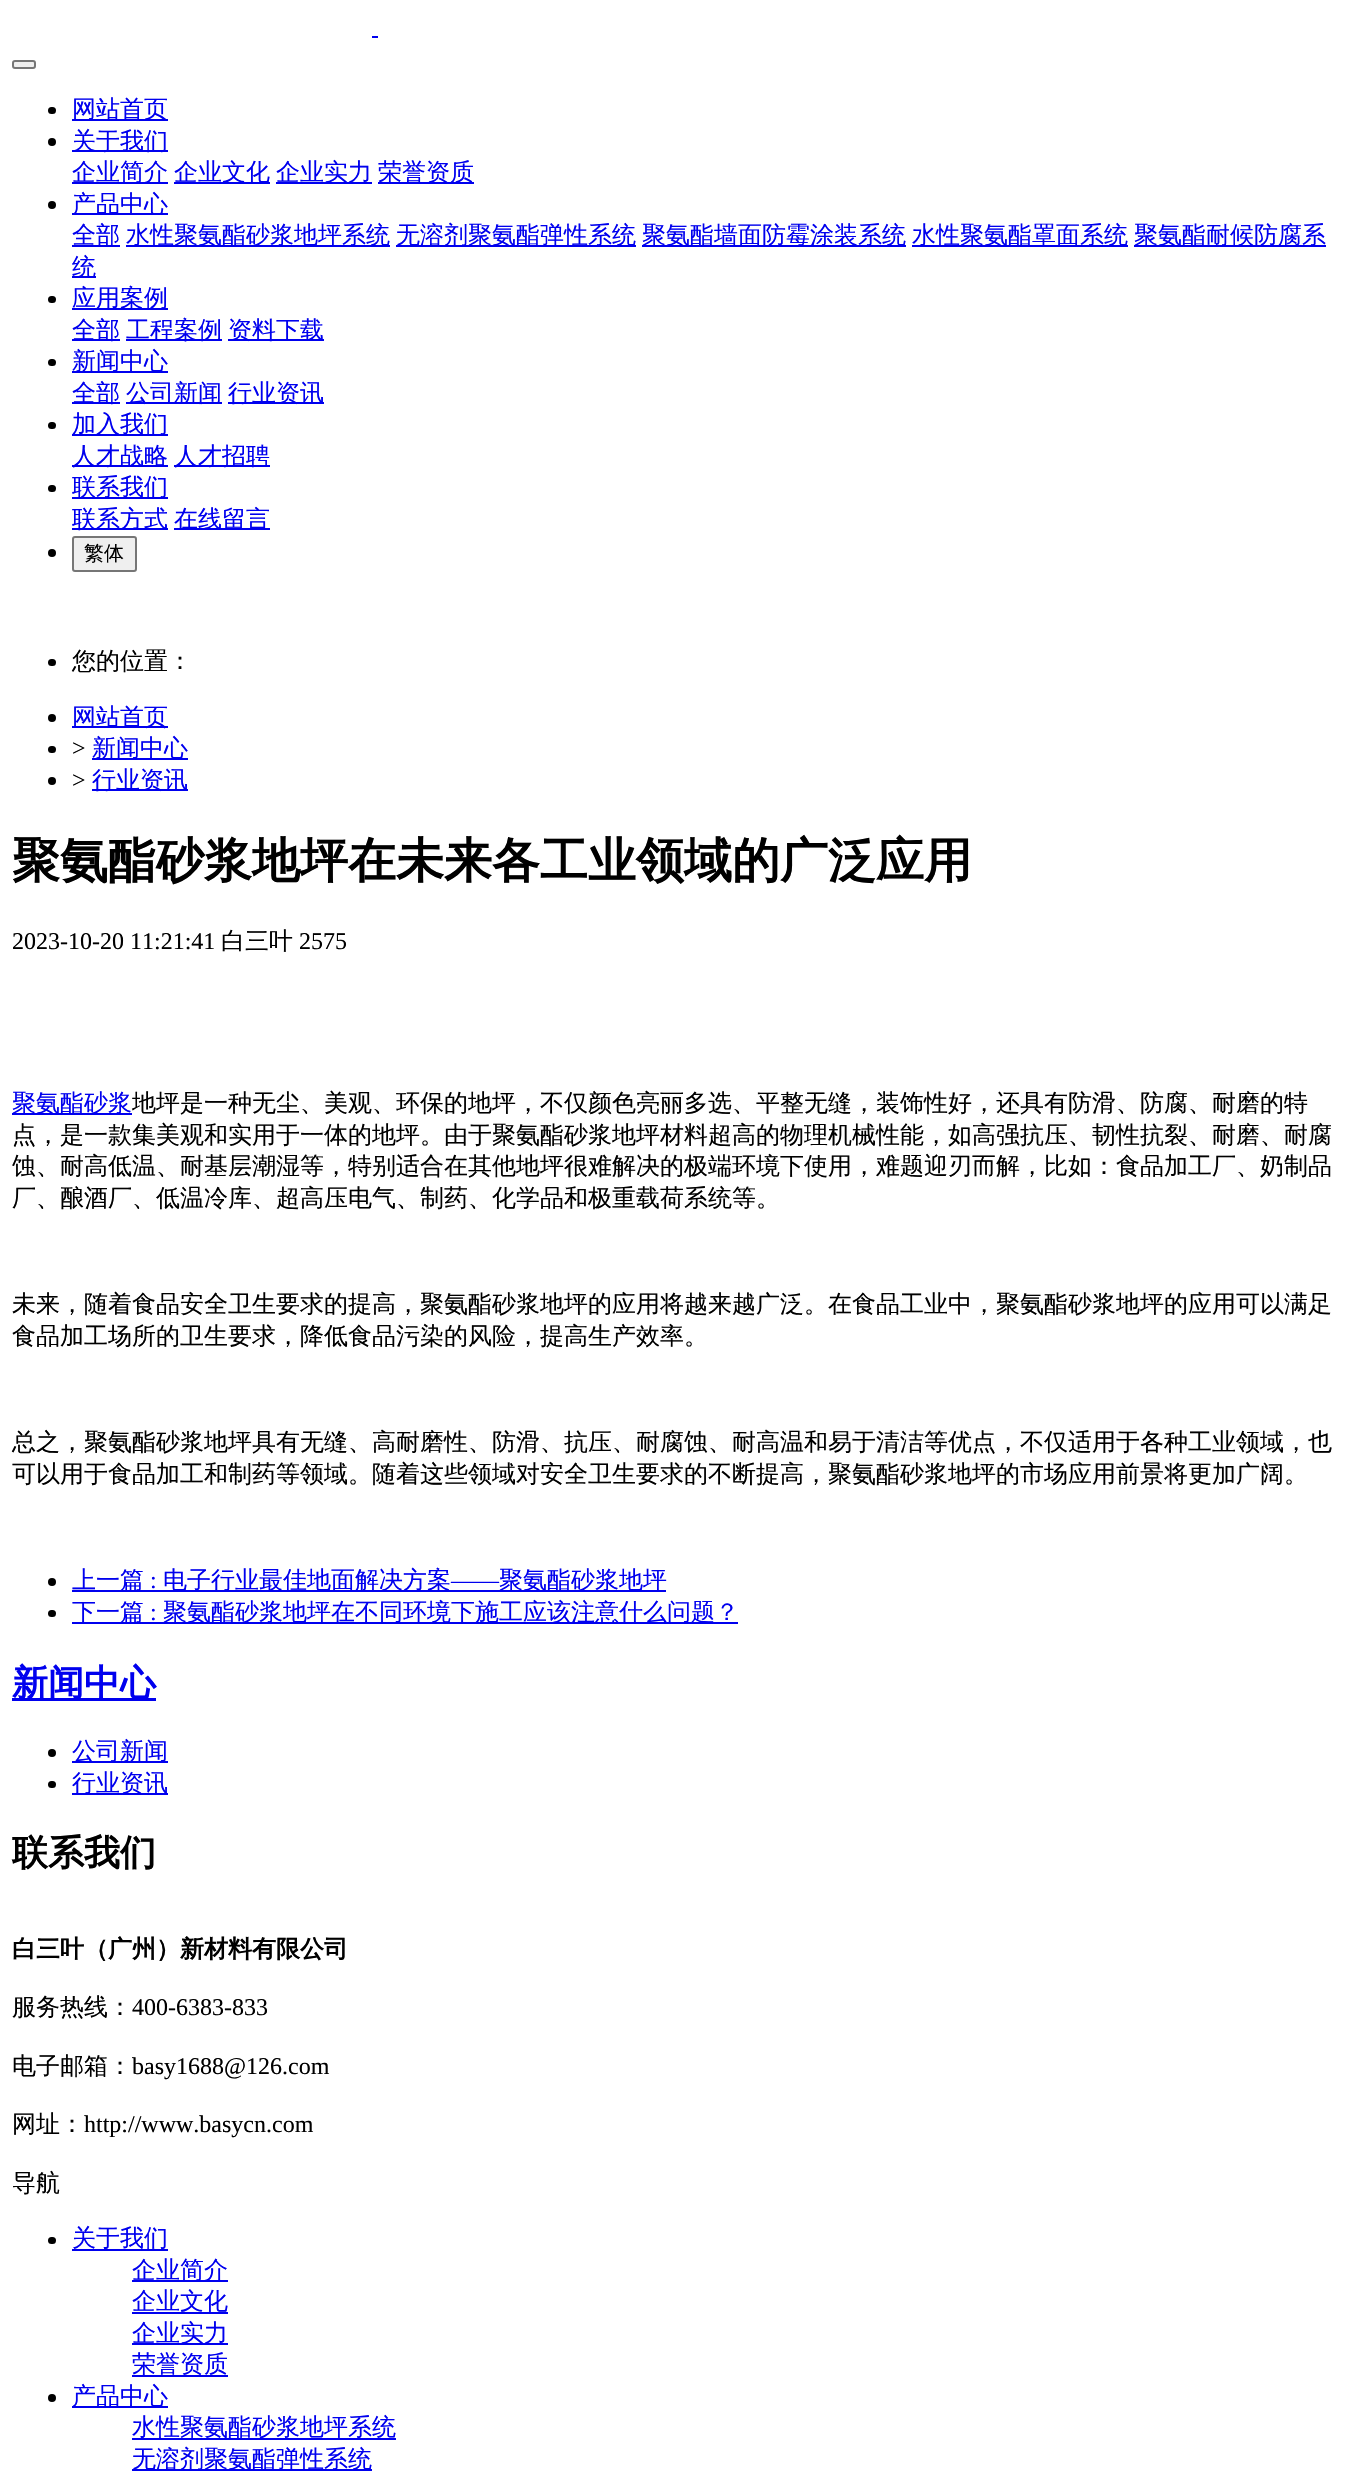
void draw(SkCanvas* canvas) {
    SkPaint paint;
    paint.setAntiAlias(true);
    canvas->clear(0xFFFFFFFF);
    paint.setColor(0xFF0000EE);
    canvas->drawRect(SkRect::MakeXYWH(372, 36, 6, 2), paint);
    paint.setColor(0xFFEFEFEF);
    canvas->drawRoundRect(SkRect::MakeXYWH(13, 61, 22, 7), 2, 2, paint);
    paint.setStyle(SkPaint::kStroke_Style);
    paint.setStrokeWidth(2);
    paint.setColor(0xFF767676);
    canvas->drawRoundRect(SkRect::MakeXYWH(13, 61, 22, 7), 2, 2, paint);
    paint.setStyle(SkPaint::kFill_Style);
    paint.setColor(0xFF000000);
    canvas->drawRoundRect(SkRect::MakeXYWH(48, 107, 8, 7), 3.5f, 3.5f, paint);
    paint.setColor(0xFF0000EE);
    canvas->drawRect(SkRect::MakeXYWH(72, 119, 96, 2), paint);
    SkFont font1(fontMgr->matchFamilyStyle("WenQuanYi Zen Hei", SkFontStyle(500, SkFontStyle::kNormal_Width, SkFontStyle::kUpright_Slant)), 24);
    font1.setSubpixel(true);
    canvas->drawString("网站首页", 72, 117, font1, paint);
    paint.setColor(0xFF000000);
    canvas->drawCircle(52, 142, 4, paint);
    paint.setColor(0xFF0000EE);
    canvas->drawRect(SkRect::MakeXYWH(72, 150, 96, 2), paint);
    canvas->drawString("关于我们", 72, 149, font1, paint);
    canvas->drawRect(SkRect::MakeXYWH(72, 182, 96, 2), paint);
    canvas->drawString("企业简介", 72, 180, font1, paint);
    canvas->drawRect(SkRect::MakeXYWH(174, 182, 96, 2), paint);
    canvas->drawString("企业文化", 174, 180, font1, paint);
    canvas->drawRect(SkRect::MakeXYWH(276, 182, 96, 2), paint);
    canvas->drawString("企业实力", 276, 180, font1, paint);
    canvas->drawRect(SkRect::MakeXYWH(378, 182, 96, 2), paint);
    canvas->drawString("荣誉资质", 378, 180, font1, paint);
    paint.setColor(0xFF000000);
    canvas->drawCircle(52, 205, 4, paint);
    paint.setColor(0xFF0000EE);
    canvas->drawRect(SkRect::MakeXYWH(72, 213, 96, 2), paint);
    canvas->drawString("产品中心", 72, 212, font1, paint);
    canvas->drawRect(SkRect::MakeXYWH(72, 245, 48, 2), paint);
    canvas->drawString("全部", 72, 243, font1, paint);
    canvas->drawRect(SkRect::MakeXYWH(126, 245, 264, 2), paint);
    canvas->drawString("水性聚氨酯砂浆地坪系统", 126, 243, font1, paint);
    canvas->drawRect(SkRect::MakeXYWH(396, 245, 240, 2), paint);
    canvas->drawString("无溶剂聚氨酯弹性系统", 396, 243, font1, paint);
    canvas->drawRect(SkRect::MakeXYWH(642, 245, 264, 2), paint);
    canvas->drawString("聚氨酯墙面防霉涂装系统", 642, 243, font1, paint);
    canvas->drawRect(SkRect::MakeXYWH(912, 245, 216, 2), paint);
    canvas->drawString("水性聚氨酯罩面系统", 912, 243, font1, paint);
    canvas->drawRect(SkRect::MakeXYWH(1134, 245, 192, 2), paint);
    canvas->drawString("聚氨酯耐候防腐系", 1134, 243, font1, paint);
    canvas->drawRect(SkRect::MakeXYWH(72, 276, 24, 2), paint);
    canvas->drawString("统", 72, 275, font1, paint);
    paint.setColor(0xFF000000);
    canvas->drawRoundRect(SkRect::MakeXYWH(48, 296, 8, 7), 3.5f, 3.5f, paint);
    paint.setColor(0xFF0000EE);
    canvas->drawRect(SkRect::MakeXYWH(72, 308, 96, 2), paint);
    canvas->drawString("应用案例", 72, 306, font1, paint);
    canvas->drawRect(SkRect::MakeXYWH(72, 339, 48, 2), paint);
    canvas->drawString("全部", 72, 338, font1, paint);
    canvas->drawRect(SkRect::MakeXYWH(126, 339, 96, 2), paint);
    canvas->drawString("工程案例", 126, 338, font1, paint);
    canvas->drawRect(SkRect::MakeXYWH(228, 339, 96, 2), paint);
    canvas->drawString("资料下载", 228, 338, font1, paint);
    paint.setColor(0xFF000000);
    canvas->drawRoundRect(SkRect::MakeXYWH(48, 359, 8, 7), 3.5f, 3.5f, paint);
    paint.setColor(0xFF0000EE);
    canvas->drawRect(SkRect::MakeXYWH(72, 371, 96, 2), paint);
    canvas->drawString("新闻中心", 72, 369, font1, paint);
    canvas->drawRect(SkRect::MakeXYWH(72, 402, 48, 2), paint);
    canvas->drawString("全部", 72, 401, font1, paint);
    canvas->drawRect(SkRect::MakeXYWH(126, 402, 96, 2), paint);
    canvas->drawString("公司新闻", 126, 401, font1, paint);
    canvas->drawRect(SkRect::MakeXYWH(228, 402, 96, 2), paint);
    canvas->drawString("行业资讯", 228, 401, font1, paint);
    paint.setColor(0xFF000000);
    canvas->drawRoundRect(SkRect::MakeXYWH(48, 422, 8, 7), 3.5f, 3.5f, paint);
    paint.setColor(0xFF0000EE);
    canvas->drawRect(SkRect::MakeXYWH(72, 434, 96, 2), paint);
    canvas->drawString("加入我们", 72, 432, font1, paint);
    canvas->drawRect(SkRect::MakeXYWH(72, 465, 96, 2), paint);
    canvas->drawString("人才战略", 72, 464, font1, paint);
    canvas->drawRect(SkRect::MakeXYWH(174, 465, 96, 2), paint);
    canvas->drawString("人才招聘", 174, 464, font1, paint);
    paint.setColor(0xFF000000);
    canvas->drawRoundRect(SkRect::MakeXYWH(48, 485, 8, 7), 3.5f, 3.5f, paint);
    paint.setColor(0xFF0000EE);
    canvas->drawRect(SkRect::MakeXYWH(72, 497, 96, 2), paint);
    canvas->drawString("联系我们", 72, 495, font1, paint);
    canvas->drawRect(SkRect::MakeXYWH(72, 528, 96, 2), paint);
    canvas->drawString("联系方式", 72, 527, font1, paint);
    canvas->drawRect(SkRect::MakeXYWH(174, 528, 96, 2), paint);
    canvas->drawString("在线留言", 174, 527, font1, paint);
    paint.setColor(0xFF000000);
    canvas->drawCircle(52, 553, 4, paint);
    paint.setColor(0xFFEFEFEF);
    canvas->drawRoundRect(SkRect::MakeXYWH(73, 537, 63, 34), 2, 2, paint);
    paint.setStyle(SkPaint::kStroke_Style);
    paint.setColor(0xFF767676);
    canvas->drawRoundRect(SkRect::MakeXYWH(73, 537, 63, 34), 2, 2, paint);
    SkFont font2(fontMgr->matchFamilyStyle("WenQuanYi Zen Hei", SkFontStyle(500, SkFontStyle::kNormal_Width, SkFontStyle::kUpright_Slant)), 20);
    font2.setSubpixel(true);
    paint.setStyle(SkPaint::kFill_Style);
    paint.setColor(0xFF000000);
    canvas->drawString("繁体", 84, 560, font2, paint);
    canvas->drawRoundRect(SkRect::MakeXYWH(48, 659, 8, 7), 3.5f, 3.5f, paint);
    canvas->drawString("您的位置：", 72, 669, font1, paint);
    canvas->drawCircle(52, 718, 4, paint);
    paint.setColor(0xFF0000EE);
    canvas->drawRect(SkRect::MakeXYWH(72, 726, 96, 2), paint);
    canvas->drawString("网站首页", 72, 725, font1, paint);
    paint.setColor(0xFF000000);
    canvas->drawRoundRect(SkRect::MakeXYWH(48, 746, 8, 7), 3.5f, 3.5f, paint);
    SkFont font3(fontMgr->matchFamilyStyle("Liberation Serif", SkFontStyle::Normal()), 24);
    font3.setSubpixel(true);
    canvas->drawString(">", 72, 756, font3, paint);
    paint.setColor(0xFF0000EE);
    canvas->drawRect(SkRect::MakeXYWH(92, 758, 96, 2), paint);
    canvas->drawString("新闻中心", 92, 756, font1, paint);
    paint.setColor(0xFF000000);
    canvas->drawCircle(52, 781, 4, paint);
    canvas->drawString(">", 72, 788, font3, paint);
    paint.setColor(0xFF0000EE);
    canvas->drawRect(SkRect::MakeXYWH(92, 789, 96, 2), paint);
    canvas->drawString("行业资讯", 92, 788, font1, paint);
    SkFont font4(fontMgr->matchFamilyStyle("WenQuanYi Zen Hei", SkFontStyle::Bold()), 48);
    font4.setSubpixel(true);
    paint.setColor(0xFF000000);
    canvas->drawString("聚氨酯砂浆地坪在未来各工业领域的广泛应用", 12, 877, font4, paint);
    canvas->drawString("2023-10-20 11:21:41", 12, 949, font3, paint);
    canvas->drawString("白三叶", 221, 949, font1, paint);
    canvas->drawString("2575", 299, 949, font3, paint);
    paint.setColor(0xFF0000EE);
    canvas->drawRect(SkRect::MakeXYWH(12, 1113, 120, 2), paint);
    canvas->drawString("聚氨酯砂浆", 12, 1111, font1, paint);
    paint.setColor(0xFF000000);
    canvas->drawString("地坪是一种无尘、美观、环保的地坪，不仅颜色亮丽多选、平整无缝，装饰性好，还具有防滑、防腐、耐磨的特", 132, 1111, font1, paint);
    canvas->drawString("点，是一款集美观和实用于一体的地坪。由于聚氨酯砂浆地坪材料超高的物理机械性能，如高强抗压、韧性抗裂、耐磨、耐腐", 12, 1143, font1, paint);
    canvas->drawString("蚀、耐高低温、耐基层潮湿等，特别适合在其他地坪很难解决的极端环境下使用，难题迎刃而解，比如：食品加工厂、奶制品", 12, 1174, font1, paint);
    canvas->drawString("厂、酿酒厂、低温冷库、超高压电气、制药、化学品和极重载荷系统等。", 12, 1206, font1, paint);
    canvas->drawString("未来，随着食品安全卫生要求的提高，聚氨酯砂浆地坪的应用将越来越广泛。在食品工业中，聚氨酯砂浆地坪的应用可以满足", 12, 1312, font1, paint);
    canvas->drawString("食品加工场所的卫生要求，降低食品污染的风险，提高生产效率。", 12, 1344, font1, paint);
    canvas->drawString("总之，聚氨酯砂浆地坪具有无缝、高耐磨性、防滑、抗压、耐腐蚀、耐高温和易于清洁等优点，不仅适用于各种工业领域，也", 12, 1450, font1, paint);
    canvas->drawString("可以用于食品加工和制药等领域。随着这些领域对安全卫生要求的不断提高，聚氨酯砂浆地坪的市场应用前景将更加广阔。", 12, 1482, font1, paint);
    canvas->drawCircle(52, 1582, 4, paint);
    paint.setColor(0xFF0000EE);
    canvas->drawRect(SkRect::MakeXYWH(72, 1590, 594, 2), paint);
    canvas->drawString("上一篇", 72, 1588, font1, paint);
    canvas->drawString(":", 150, 1588, font3, paint);
    canvas->drawString("电子行业最佳地面解决方案", 163, 1588, font1, paint);
    canvas->drawString("——", 451, 1588, font3, paint);
    canvas->drawString("聚氨酯砂浆地坪", 499, 1588, font1, paint);
    paint.setColor(0xFF000000);
    canvas->drawRoundRect(SkRect::MakeXYWH(48, 1610, 8, 7), 3.5f, 3.5f, paint);
    paint.setColor(0xFF0000EE);
    canvas->drawRect(SkRect::MakeXYWH(72, 1622, 666, 2), paint);
    canvas->drawString("下一篇", 72, 1620, font1, paint);
    canvas->drawString(":", 150, 1620, font3, paint);
    canvas->drawString("聚氨酯砂浆地坪在不同环境下施工应该注意什么问题？", 163, 1620, font1, paint);
    canvas->drawRect(SkRect::MakeXYWH(12, 1698, 144, 3), paint);
    SkFont font5(fontMgr->matchFamilyStyle("WenQuanYi Zen Hei", SkFontStyle::Bold()), 36);
    font5.setSubpixel(true);
    canvas->drawString("新闻中心", 12, 1695, font5, paint);
    paint.setColor(0xFF000000);
    canvas->drawCircle(52, 1753, 4, paint);
    paint.setColor(0xFF0000EE);
    canvas->drawRect(SkRect::MakeXYWH(72, 1761, 96, 2), paint);
    canvas->drawString("公司新闻", 72, 1759, font1, paint);
    paint.setColor(0xFF000000);
    canvas->drawRoundRect(SkRect::MakeXYWH(48, 1781, 8, 7), 3.5f, 3.5f, paint);
    paint.setColor(0xFF0000EE);
    canvas->drawRect(SkRect::MakeXYWH(72, 1793, 96, 2), paint);
    canvas->drawString("行业资讯", 72, 1791, font1, paint);
    paint.setColor(0xFF000000);
    canvas->drawString("联系我们", 12, 1865, font5, paint);
    SkFont font6(fontMgr->matchFamilyStyle("WenQuanYi Zen Hei", SkFontStyle::Bold()), 24);
    font6.setSubpixel(true);
    canvas->drawString("白三叶（广州）新材料有限公司", 12, 1957, font6, paint);
    canvas->drawString("服务热线：", 12, 2015, font1, paint);
    canvas->drawString("400-6383-833", 132, 2015, font3, paint);
    canvas->drawString("电子邮箱：", 12, 2074, font1, paint);
    canvas->drawString("basy1688@126.com", 132, 2074, font3, paint);
    canvas->drawString("网址：", 12, 2132, font1, paint);
    canvas->drawString("http://www.basycn.com", 84, 2132, font3, paint);
    canvas->drawString("导航", 12, 2191, font1, paint);
    canvas->drawRoundRect(SkRect::MakeXYWH(48, 2237, 8, 7), 3.5f, 3.5f, paint);
    paint.setColor(0xFF0000EE);
    canvas->drawRect(SkRect::MakeXYWH(72, 2249, 96, 2), paint);
    canvas->drawString("关于我们", 72, 2246, font1, paint);
    canvas->drawRect(SkRect::MakeXYWH(132, 2280, 96, 2), paint);
    canvas->drawString("企业简介", 132, 2278, font1, paint);
    canvas->drawString("企业文化", 132, 2309, font1, paint);
    canvas->drawRect(SkRect::MakeXYWH(132, 2312, 96, 2), paint);
    canvas->drawRect(SkRect::MakeXYWH(132, 2343, 96, 2), paint);
    canvas->drawString("企业实力", 132, 2341, font1, paint);
    canvas->drawRect(SkRect::MakeXYWH(132, 2375, 96, 2), paint);
    canvas->drawString("荣誉资质", 132, 2372, font1, paint);
    paint.setColor(0xFF000000);
    canvas->drawCircle(52, 2398, 4, paint);
    paint.setColor(0xFF0000EE);
    canvas->drawRect(SkRect::MakeXYWH(72, 2406, 96, 2), paint);
    canvas->drawString("产品中心", 72, 2404, font1, paint);
    canvas->drawRect(SkRect::MakeXYWH(132, 2438, 264, 2), paint);
    canvas->drawString("水性聚氨酯砂浆地坪系统", 132, 2435, font1, paint);
    canvas->drawRect(SkRect::MakeXYWH(132, 2469, 240, 2), paint);
    canvas->drawString("无溶剂聚氨酯弹性系统", 132, 2467, font1, paint);
}
